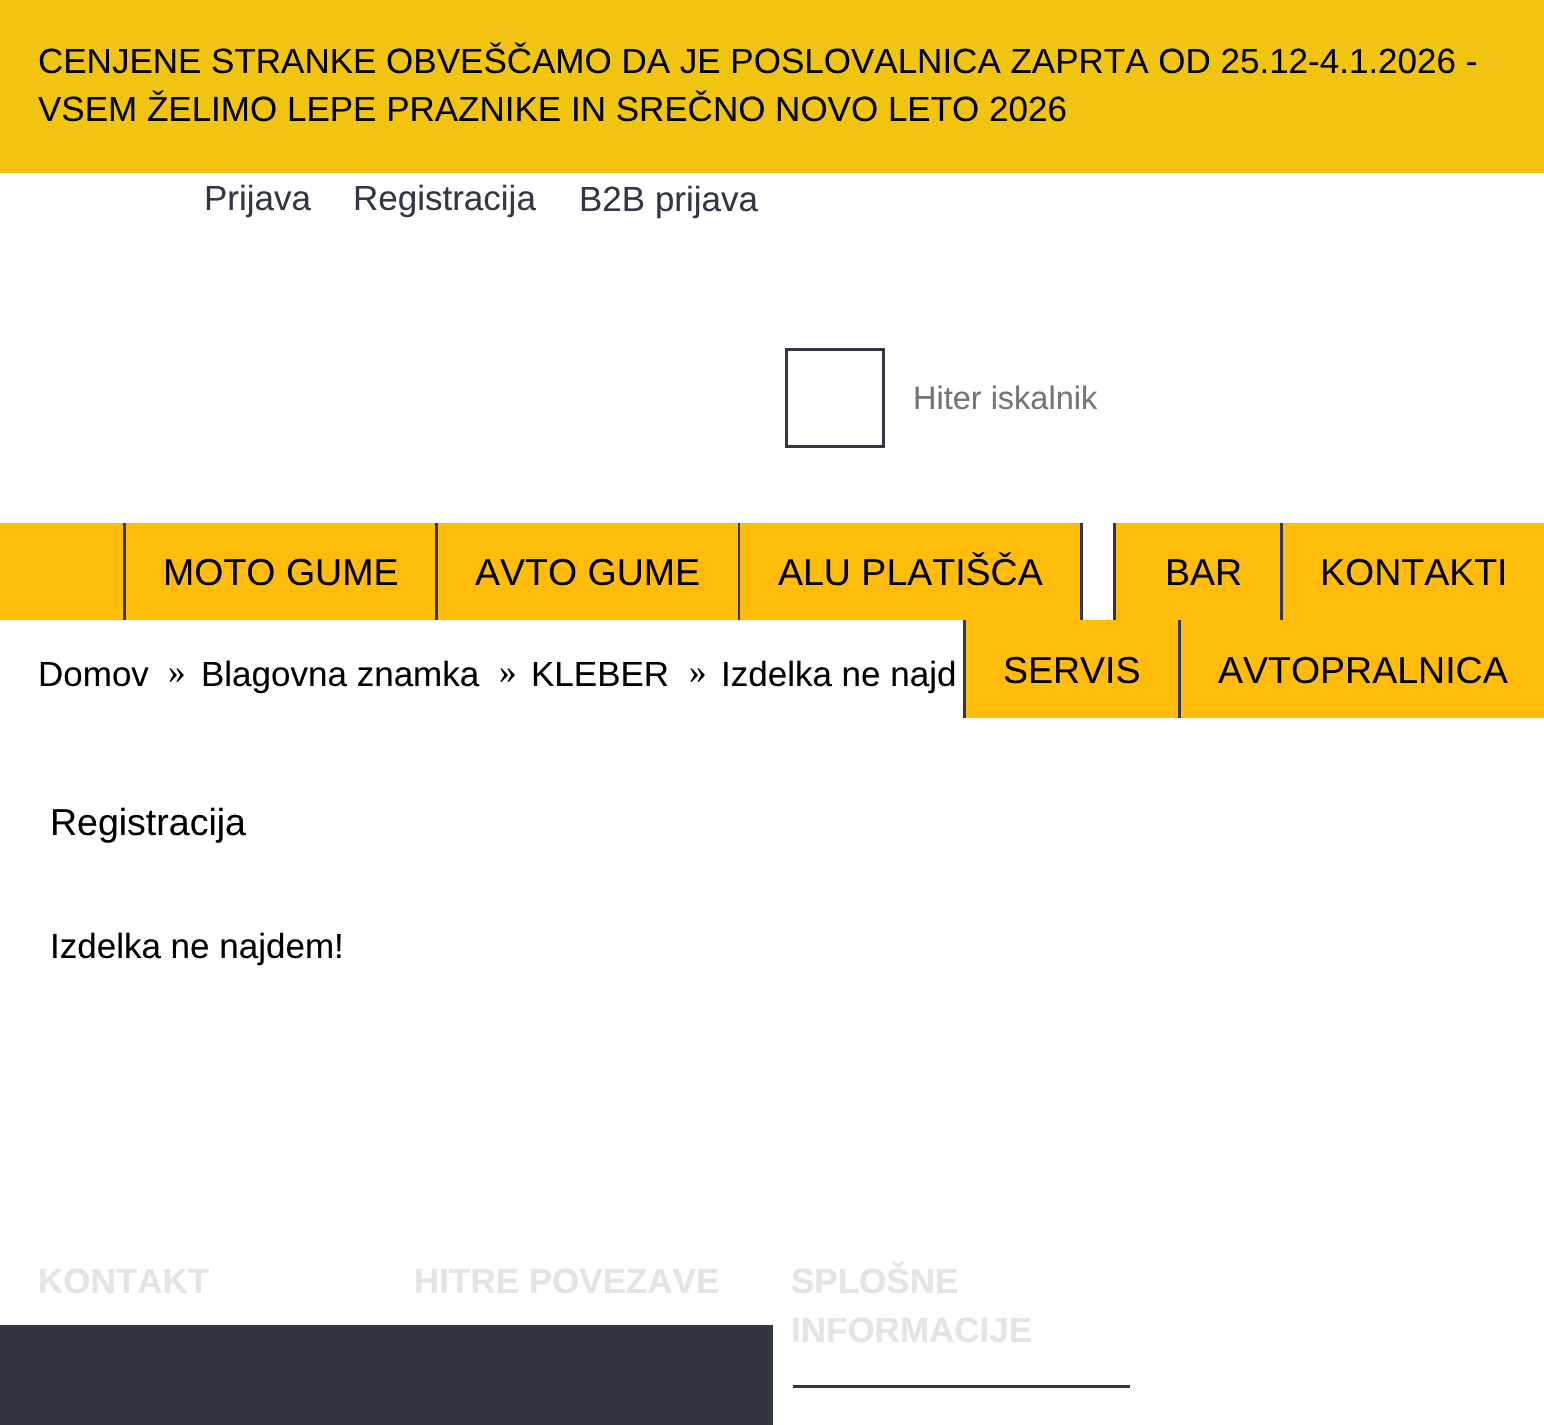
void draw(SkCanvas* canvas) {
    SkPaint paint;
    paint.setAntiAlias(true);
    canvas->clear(0xFFFFFFFF);
    paint.setColor(0xFFF1C40F);
    canvas->drawRect(SkRect::MakeXYWH(0, 0, 1544, 173), paint);
    SkFont font1(fontMgr->matchFamilyStyle("Liberation Sans", SkFontStyle::Normal()), 35);
    font1.setSubpixel(true);
    paint.setColor(0xFF000000);
    canvas->drawString("CENJENE STRANKE OBVEŠČAMO DA JE POSLOVALNICA ZAPRTA OD 25.12-4.1.2026 -", 38, 73, font1, paint);
    canvas->drawString("VSEM ŽELIMO LEPE PRAZNIKE IN SREČNO NOVO LETO 2026", 38, 121, font1, paint);
    paint.setColor(0xFF333745);
    canvas->drawString("Prijava", 204, 210, font1, paint);
    canvas->drawString("Registracija", 353, 210, font1, paint);
    canvas->drawString("B2B prijava", 579, 211, font1, paint);
    canvas->drawRect(SkRect::MakeXYWH(0, 1325, 773, 100), paint);
    paint.setStyle(SkPaint::kStroke_Style);
    paint.setStrokeWidth(3);
    canvas->drawRect(SkRect::MakeXYWH(786.5f, 349.5f, 97, 97), paint);
    SkFont font2(fontMgr->matchFamilyStyle("Liberation Sans", SkFontStyle::Normal()), 32.5f);
    font2.setSubpixel(true);
    paint.setStyle(SkPaint::kFill_Style);
    paint.setColor(0xFF757575);
    canvas->drawString("Hiter iskalnik", 913, 409, font2, paint);
    paint.setColor(0xFFFFBC0B);
    canvas->drawRect(SkRect::MakeXYWH(0, 523, 123, 97), paint);
    paint.setColor(0xFF333745);
    canvas->drawRect(SkRect::MakeXYWH(123, 523, 3, 97), paint);
    paint.setColor(0xFFFFBC0B);
    canvas->drawRect(SkRect::MakeXYWH(126, 523, 309, 97), paint);
    paint.setColor(0xFF333745);
    canvas->drawRect(SkRect::MakeXYWH(435, 523, 3, 97), paint);
    SkFont font3(fontMgr->matchFamilyStyle("Liberation Sans", SkFontStyle::Normal()), 37.5f);
    font3.setSubpixel(true);
    paint.setColor(0xFF000000);
    canvas->drawString("MOTO GUME", 163, 585, font3, paint);
    paint.setColor(0xFFFFBC0B);
    canvas->drawRect(SkRect::MakeXYWH(438, 523, 300, 97), paint);
    paint.setColor(0xFF333745);
    canvas->drawRect(SkRect::MakeXYWH(738, 523, 2, 97), paint);
    paint.setColor(0xFF000000);
    canvas->drawString("AVTO GUME", 475, 585, font3, paint);
    paint.setColor(0xFFFFBC0B);
    canvas->drawRect(SkRect::MakeXYWH(740, 523, 340, 97), paint);
    paint.setColor(0xFF333745);
    canvas->drawRect(SkRect::MakeXYWH(1080, 523, 3, 97), paint);
    paint.setColor(0xFF000000);
    canvas->drawString("ALU PLATIŠČA", 778, 585, font3, paint);
    paint.setColor(0xFFFFBC0B);
    canvas->drawRect(SkRect::MakeXYWH(1116, 523, 164, 97), paint);
    paint.setColor(0xFF333745);
    canvas->drawRect(SkRect::MakeXYWH(1113, 523, 3, 97), paint);
    paint.setColor(0xFF000000);
    canvas->drawString("BAR", 1165, 585, font3, paint);
    paint.setColor(0xFFFFBC0B);
    canvas->drawRect(SkRect::MakeXYWH(1283, 523, 261, 97), paint);
    paint.setColor(0xFF333745);
    canvas->drawRect(SkRect::MakeXYWH(1280, 523, 3, 97), paint);
    paint.setColor(0xFF000000);
    canvas->drawString("KONTAKTI", 1320, 585, font3, paint);
    paint.setColor(0xFFFFBC0B);
    canvas->drawRect(SkRect::MakeXYWH(966, 620, 212, 98), paint);
    paint.setColor(0xFF333745);
    canvas->drawRect(SkRect::MakeXYWH(963, 620, 3, 98), paint);
    paint.setColor(0xFF000000);
    canvas->drawString("SERVIS", 1003, 683, font3, paint);
    paint.setColor(0xFFFFBC0B);
    canvas->drawRect(SkRect::MakeXYWH(1181, 620, 363, 98), paint);
    paint.setColor(0xFF333745);
    canvas->drawRect(SkRect::MakeXYWH(1178, 620, 3, 98), paint);
    paint.setColor(0xFF000000);
    canvas->drawString("AVTOPRALNICA", 1218, 683, font3, paint);
    canvas->drawString("Domov", 38, 686, font1, paint);
    SkFont font4(fontMgr->matchFamilyStyle("Liberation Serif", SkFontStyle::Normal()), 35);
    font4.setSubpixel(true);
    canvas->drawString("»", 168, 683, font4, paint);
    canvas->drawString("Blagovna znamka", 201, 686, font1, paint);
    canvas->drawString("»", 499, 683, font4, paint);
    canvas->drawString("KLEBER", 531, 686, font1, paint);
    canvas->drawString("»", 689, 683, font4, paint);
    canvas->drawString("Izdelka ne najd", 721, 686, font1, paint);
    canvas->drawString("Registracija", 50, 835, font3, paint);
    canvas->drawString("Izdelka ne najdem!", 50, 958, font1, paint);
    SkFont font5(fontMgr->matchFamilyStyle("Liberation Sans", SkFontStyle::Bold()), 35);
    font5.setSubpixel(true);
    paint.setColor(0xFFE4E4E4);
    canvas->drawString("KONTAKT", 38, 1293, font5, paint);
    canvas->drawString("HITRE POVEZAVE", 414, 1293, font5, paint);
    paint.setColor(0xFF333745);
    canvas->drawRect(SkRect::MakeXYWH(793, 1385, 337, 3), paint);
    paint.setColor(0xFFE4E4E4);
    canvas->drawString("SPLOŠNE", 791, 1293, font5, paint);
    canvas->drawString("INFORMACIJE", 791, 1342, font5, paint);
}
